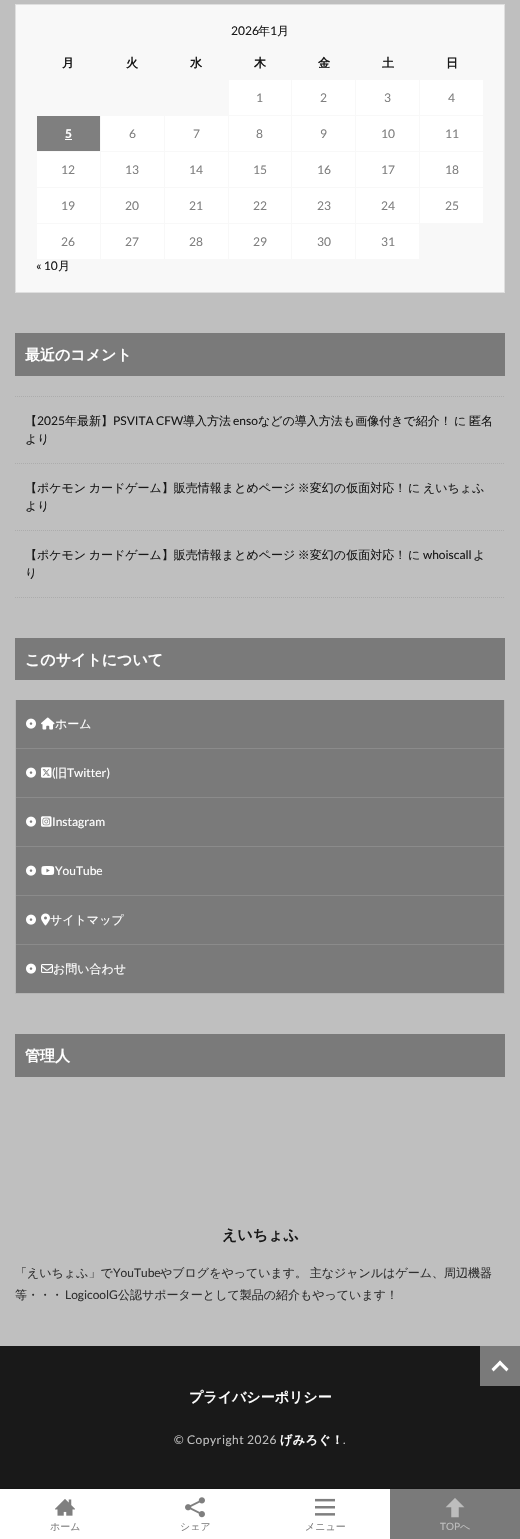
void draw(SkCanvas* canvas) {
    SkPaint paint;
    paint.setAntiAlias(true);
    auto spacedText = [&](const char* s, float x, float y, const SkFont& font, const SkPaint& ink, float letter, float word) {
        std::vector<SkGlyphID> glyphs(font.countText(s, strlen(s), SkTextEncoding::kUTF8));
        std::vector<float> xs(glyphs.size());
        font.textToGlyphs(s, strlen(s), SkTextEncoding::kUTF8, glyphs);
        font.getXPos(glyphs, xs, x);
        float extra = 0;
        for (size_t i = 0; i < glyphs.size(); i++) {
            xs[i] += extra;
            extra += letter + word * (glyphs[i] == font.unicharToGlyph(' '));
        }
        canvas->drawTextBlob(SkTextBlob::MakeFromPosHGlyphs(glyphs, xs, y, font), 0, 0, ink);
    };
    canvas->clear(0xFFBFBFBF);
    paint.setColor(0xFFF8F8F8);
    canvas->drawRect(SkRect::MakeXYWH(15.5f, 4.5f, 489, 288), paint);
    paint.setStyle(SkPaint::kStroke_Style);
    paint.setStrokeWidth(1);
    paint.setColor(0xFFDFDFDF);
    canvas->drawRect(SkRect::MakeXYWH(15.5f, 4.5f, 489, 288), paint);
    SkFont font1(fontMgr->matchFamilyStyle("Lato", SkFontStyle::Normal()), 12);
    font1.setSubpixel(true);
    paint.setStyle(SkPaint::kFill_Style);
    paint.setColor(0xFF191919);
    canvas->drawString("2026", 231, 35, font1, paint);
    SkFont font2(fontMgr->matchFamilyStyle("WenQuanYi Zen Hei", SkFontStyle(500, SkFontStyle::kNormal_Width, SkFontStyle::kUpright_Slant)), 12);
    font2.setSubpixel(true);
    canvas->drawString("年", 258, 35, font2, paint);
    canvas->drawString("1", 270, 35, font1, paint);
    canvas->drawString("月", 277, 35, font2, paint);
    SkFont font3(fontMgr->matchFamilyStyle("WenQuanYi Zen Hei", SkFontStyle::Bold()), 12);
    font3.setSubpixel(true);
    canvas->drawString("月", 62, 67, font3, paint);
    canvas->drawString("火", 126, 67, font3, paint);
    canvas->drawString("水", 190, 67, font3, paint);
    canvas->drawString("木", 254, 67, font3, paint);
    canvas->drawString("金", 318, 67, font3, paint);
    canvas->drawString("土", 382, 67, font3, paint);
    canvas->drawString("日", 446, 67, font3, paint);
    paint.setColor(0xFFFFFFFF);
    canvas->drawRect(SkRect::MakeXYWH(229, 80, 62, 35), paint);
    paint.setColor(0xFF7F7F7F);
    canvas->drawString("1", 256, 102, font1, paint);
    paint.setColor(0xFFFFFFFF);
    canvas->drawRect(SkRect::MakeXYWH(292, 80, 63, 35), paint);
    paint.setColor(0xFF7F7F7F);
    canvas->drawString("2", 320, 102, font1, paint);
    paint.setColor(0xFFFFFFFF);
    canvas->drawRect(SkRect::MakeXYWH(356, 80, 63, 35), paint);
    paint.setColor(0xFF7F7F7F);
    canvas->drawString("3", 384, 102, font1, paint);
    paint.setColor(0xFFFFFFFF);
    canvas->drawRect(SkRect::MakeXYWH(420, 80, 63, 35), paint);
    paint.setColor(0xFF7F7F7F);
    canvas->drawString("4", 448, 102, font1, paint);
    canvas->drawRect(SkRect::MakeXYWH(37, 116, 63, 35), paint);
    SkFont font4(fontMgr->matchFamilyStyle("Lato", SkFontStyle::Bold()), 12);
    font4.setSubpixel(true);
    paint.setColor(0xFFFFFFFF);
    canvas->drawString("5", 65, 138, font4, paint);
    canvas->drawRect(SkRect::MakeXYWH(65, 139, 7, 1), paint);
    canvas->drawRect(SkRect::MakeXYWH(101, 116, 63, 35), paint);
    paint.setColor(0xFF7F7F7F);
    canvas->drawString("6", 129, 138, font1, paint);
    paint.setColor(0xFFFFFFFF);
    canvas->drawRect(SkRect::MakeXYWH(165, 116, 63, 35), paint);
    paint.setColor(0xFF7F7F7F);
    canvas->drawString("7", 193, 138, font1, paint);
    paint.setColor(0xFFFFFFFF);
    canvas->drawRect(SkRect::MakeXYWH(229, 116, 62, 35), paint);
    paint.setColor(0xFF7F7F7F);
    canvas->drawString("8", 256, 138, font1, paint);
    paint.setColor(0xFFFFFFFF);
    canvas->drawRect(SkRect::MakeXYWH(292, 116, 63, 35), paint);
    paint.setColor(0xFF7F7F7F);
    canvas->drawString("9", 320, 138, font1, paint);
    paint.setColor(0xFFFFFFFF);
    canvas->drawRect(SkRect::MakeXYWH(356, 116, 63, 35), paint);
    paint.setColor(0xFF7F7F7F);
    canvas->drawString("10", 381, 138, font1, paint);
    paint.setColor(0xFFFFFFFF);
    canvas->drawRect(SkRect::MakeXYWH(420, 116, 63, 35), paint);
    paint.setColor(0xFF7F7F7F);
    canvas->drawString("11", 445, 138, font1, paint);
    paint.setColor(0xFFFFFFFF);
    canvas->drawRect(SkRect::MakeXYWH(37, 152, 63, 35), paint);
    paint.setColor(0xFF7F7F7F);
    canvas->drawString("12", 61, 174, font1, paint);
    paint.setColor(0xFFFFFFFF);
    canvas->drawRect(SkRect::MakeXYWH(101, 152, 63, 35), paint);
    paint.setColor(0xFF7F7F7F);
    canvas->drawString("13", 125, 174, font1, paint);
    paint.setColor(0xFFFFFFFF);
    canvas->drawRect(SkRect::MakeXYWH(165, 152, 63, 35), paint);
    paint.setColor(0xFF7F7F7F);
    canvas->drawString("14", 189, 174, font1, paint);
    paint.setColor(0xFFFFFFFF);
    canvas->drawRect(SkRect::MakeXYWH(229, 152, 62, 35), paint);
    paint.setColor(0xFF7F7F7F);
    canvas->drawString("15", 253, 174, font1, paint);
    paint.setColor(0xFFFFFFFF);
    canvas->drawRect(SkRect::MakeXYWH(292, 152, 63, 35), paint);
    paint.setColor(0xFF7F7F7F);
    canvas->drawString("16", 317, 174, font1, paint);
    paint.setColor(0xFFFFFFFF);
    canvas->drawRect(SkRect::MakeXYWH(356, 152, 63, 35), paint);
    paint.setColor(0xFF7F7F7F);
    canvas->drawString("17", 381, 174, font1, paint);
    paint.setColor(0xFFFFFFFF);
    canvas->drawRect(SkRect::MakeXYWH(420, 152, 63, 35), paint);
    paint.setColor(0xFF7F7F7F);
    canvas->drawString("18", 445, 174, font1, paint);
    paint.setColor(0xFFFFFFFF);
    canvas->drawRect(SkRect::MakeXYWH(37, 188, 63, 35), paint);
    paint.setColor(0xFF7F7F7F);
    canvas->drawString("19", 61, 210, font1, paint);
    paint.setColor(0xFFFFFFFF);
    canvas->drawRect(SkRect::MakeXYWH(101, 188, 63, 35), paint);
    paint.setColor(0xFF7F7F7F);
    canvas->drawString("20", 125, 210, font1, paint);
    paint.setColor(0xFFFFFFFF);
    canvas->drawRect(SkRect::MakeXYWH(165, 188, 63, 35), paint);
    paint.setColor(0xFF7F7F7F);
    canvas->drawString("21", 189, 210, font1, paint);
    paint.setColor(0xFFFFFFFF);
    canvas->drawRect(SkRect::MakeXYWH(229, 188, 62, 35), paint);
    paint.setColor(0xFF7F7F7F);
    canvas->drawString("22", 253, 210, font1, paint);
    paint.setColor(0xFFFFFFFF);
    canvas->drawRect(SkRect::MakeXYWH(292, 188, 63, 35), paint);
    paint.setColor(0xFF7F7F7F);
    canvas->drawString("23", 317, 210, font1, paint);
    paint.setColor(0xFFFFFFFF);
    canvas->drawRect(SkRect::MakeXYWH(356, 188, 63, 35), paint);
    paint.setColor(0xFF7F7F7F);
    canvas->drawString("24", 381, 210, font1, paint);
    paint.setColor(0xFFFFFFFF);
    canvas->drawRect(SkRect::MakeXYWH(420, 188, 63, 35), paint);
    paint.setColor(0xFF7F7F7F);
    canvas->drawString("25", 445, 210, font1, paint);
    paint.setColor(0xFFFFFFFF);
    canvas->drawRect(SkRect::MakeXYWH(37, 224, 63, 35), paint);
    paint.setColor(0xFF7F7F7F);
    canvas->drawString("26", 61, 246, font1, paint);
    paint.setColor(0xFFFFFFFF);
    canvas->drawRect(SkRect::MakeXYWH(101, 224, 63, 35), paint);
    paint.setColor(0xFF7F7F7F);
    canvas->drawString("27", 125, 246, font1, paint);
    paint.setColor(0xFFFFFFFF);
    canvas->drawRect(SkRect::MakeXYWH(165, 224, 63, 35), paint);
    paint.setColor(0xFF7F7F7F);
    canvas->drawString("28", 189, 246, font1, paint);
    paint.setColor(0xFFFFFFFF);
    canvas->drawRect(SkRect::MakeXYWH(229, 224, 62, 35), paint);
    paint.setColor(0xFF7F7F7F);
    canvas->drawString("29", 253, 246, font1, paint);
    paint.setColor(0xFFFFFFFF);
    canvas->drawRect(SkRect::MakeXYWH(292, 224, 63, 35), paint);
    paint.setColor(0xFF7F7F7F);
    canvas->drawString("30", 317, 246, font1, paint);
    paint.setColor(0xFFFFFFFF);
    canvas->drawRect(SkRect::MakeXYWH(356, 224, 63, 35), paint);
    paint.setColor(0xFF7F7F7F);
    canvas->drawString("31", 381, 246, font1, paint);
    paint.setColor(0xFF191919);
    canvas->drawString("« 10", 36, 270, font1, paint);
    canvas->drawString("月", 58, 270, font2, paint);
    paint.setColor(0xFF7A7A7A);
    canvas->drawRect(SkRect::MakeXYWH(15, 333, 490, 43), paint);
    SkFont font5(fontMgr->matchFamilyStyle("WenQuanYi Zen Hei", SkFontStyle::Bold()), 15);
    font5.setSubpixel(true);
    paint.setColor(0xFFFFFFFF);
    canvas->drawString("最近のコメント", 25, 360, font5, paint);
    paint.setStyle(SkPaint::kStroke_Style);
    paint.setColor(0xFFACACAC);
    paint.setPathEffect(SkDashPathEffect::Make({{1, 1}}, 0));
    canvas->drawPath(SkPathBuilder().moveTo(15, 396.5f).lineTo(505, 396.5f).detach(), paint);
    paint.setPathEffect(nullptr);
    paint.setPathEffect(SkDashPathEffect::Make({{1, 1}}, 0));
    canvas->drawPath(SkPathBuilder().moveTo(15, 463.5f).lineTo(505, 463.5f).detach(), paint);
    paint.setPathEffect(nullptr);
    paint.setStyle(SkPaint::kFill_Style);
    paint.setColor(0xFF191919);
    canvas->drawString("【", 25, 425, font2, paint);
    canvas->drawString("2025", 37, 425, font1, paint);
    canvas->drawString("年最新】", 65, 425, font2, paint);
    canvas->drawString("PSVITA CFW", 113, 425, font1, paint);
    canvas->drawString("導入方法", 183, 425, font2, paint);
    canvas->drawString("enso", 233, 425, font1, paint);
    canvas->drawString("などの導入方法も画像付きで紹介！", 258, 425, font2, paint);
    canvas->drawString("に", 454, 425, font2, paint);
    canvas->drawString("匿名", 469, 425, font2, paint);
    canvas->drawString("より", 25, 443, font2, paint);
    paint.setStyle(SkPaint::kStroke_Style);
    paint.setColor(0xFFACACAC);
    paint.setPathEffect(SkDashPathEffect::Make({{1, 1}}, 0));
    canvas->drawPath(SkPathBuilder().moveTo(15, 530.5f).lineTo(505, 530.5f).detach(), paint);
    paint.setPathEffect(nullptr);
    paint.setStyle(SkPaint::kFill_Style);
    paint.setColor(0xFF191919);
    spacedText("【ポケモン カードゲーム】販売情報まとめページ ※変幻の仮面対応！", 25, 492, font2, paint, 0, -1);
    canvas->drawString("に", 408, 492, font2, paint);
    canvas->drawString("えいちょふ", 423, 492, font2, paint);
    canvas->drawString("より", 25, 510, font2, paint);
    paint.setStyle(SkPaint::kStroke_Style);
    paint.setColor(0xFFACACAC);
    paint.setPathEffect(SkDashPathEffect::Make({{1, 1}}, 0));
    canvas->drawPath(SkPathBuilder().moveTo(15, 597.5f).lineTo(505, 597.5f).detach(), paint);
    paint.setPathEffect(nullptr);
    paint.setStyle(SkPaint::kFill_Style);
    paint.setColor(0xFF191919);
    spacedText("【ポケモン カードゲーム】販売情報まとめページ ※変幻の仮面対応！", 25, 559, font2, paint, 0, -1);
    canvas->drawString("に", 408, 559, font2, paint);
    canvas->drawString("whoiscall", 423, 559, font1, paint);
    canvas->drawString("よ", 473, 559, font2, paint);
    canvas->drawString("り", 25, 577, font2, paint);
    paint.setColor(0xFF7A7A7A);
    canvas->drawRect(SkRect::MakeXYWH(15, 638, 490, 42), paint);
    paint.setColor(0xFFFFFFFF);
    canvas->drawString("このサイトについて", 25, 665, font5, paint);
    paint.setColor(0xFFB5B5B5);
    canvas->drawPath(SkPathBuilder().moveTo(505, 700).lineTo(505, 994).lineTo(504, 993).lineTo(504, 700).close().detach(), paint);
    paint.setColor(0x267A7A7A);
    canvas->drawPath(SkPathBuilder().moveTo(505, 994).lineTo(15, 994).lineTo(16, 993).lineTo(504, 993).close().detach(), paint);
    canvas->drawPath(SkPathBuilder().moveTo(15, 994).lineTo(15, 700).lineTo(16, 700).lineTo(16, 993).close().detach(), paint);
    paint.setColor(0xFF7A7A7A);
    canvas->drawRect(SkRect::MakeXYWH(16, 700, 488, 48), paint);
    canvas->drawImageRect(SkImages::DeferredFromEncodedData(SkData::MakeFromFileName("img1.png")), SkRect::MakeXYWH(26, 718, 10, 11), SkSamplingOptions());
    canvas->drawImageRect(SkImages::DeferredFromEncodedData(SkData::MakeFromFileName("img2.png")), SkRect::MakeXYWH(41, 717, 14, 13), SkSamplingOptions());
    paint.setColor(0xFFFFFFFF);
    canvas->drawString("ホーム", 55, 728, font2, paint);
    paint.setColor(0xFF8B8B8B);
    canvas->drawRect(SkRect::MakeXYWH(16, 748, 488, 1), paint);
    paint.setColor(0xFF7A7A7A);
    canvas->drawRect(SkRect::MakeXYWH(16, 749, 488, 48), paint);
    canvas->drawImageRect(SkImages::DeferredFromEncodedData(SkData::MakeFromFileName("img1.png")), SkRect::MakeXYWH(26, 767, 10, 11), SkSamplingOptions());
    canvas->drawImageRect(SkImages::DeferredFromEncodedData(SkData::MakeFromFileName("img3.png")), SkRect::MakeXYWH(41, 767, 11, 11), SkSamplingOptions());
    paint.setColor(0xFFFFFFFF);
    canvas->drawString("(", 52, 777, font1, paint);
    canvas->drawString("旧", 55, 777, font2, paint);
    canvas->drawString("Twitter)", 67, 777, font1, paint);
    paint.setColor(0xFF8B8B8B);
    canvas->drawRect(SkRect::MakeXYWH(16, 797, 488, 1), paint);
    paint.setColor(0xFF7A7A7A);
    canvas->drawRect(SkRect::MakeXYWH(16, 798, 488, 48), paint);
    canvas->drawImageRect(SkImages::DeferredFromEncodedData(SkData::MakeFromFileName("img1.png")), SkRect::MakeXYWH(26, 816, 10, 11), SkSamplingOptions());
    canvas->drawImageRect(SkImages::DeferredFromEncodedData(SkData::MakeFromFileName("img4.png")), SkRect::MakeXYWH(41, 816, 11, 11), SkSamplingOptions());
    paint.setColor(0xFFFFFFFF);
    canvas->drawString("Instagram", 52, 826, font1, paint);
    paint.setColor(0xFF8B8B8B);
    canvas->drawRect(SkRect::MakeXYWH(16, 846, 488, 1), paint);
    paint.setColor(0xFF7A7A7A);
    canvas->drawRect(SkRect::MakeXYWH(16, 847, 488, 48), paint);
    canvas->drawImageRect(SkImages::DeferredFromEncodedData(SkData::MakeFromFileName("img1.png")), SkRect::MakeXYWH(26, 865, 10, 11), SkSamplingOptions());
    canvas->drawImageRect(SkImages::DeferredFromEncodedData(SkData::MakeFromFileName("img5.png")), SkRect::MakeXYWH(41, 866, 14, 9), SkSamplingOptions());
    paint.setColor(0xFFFFFFFF);
    canvas->drawString("YouTube", 55, 875, font1, paint);
    paint.setColor(0xFF8B8B8B);
    canvas->drawRect(SkRect::MakeXYWH(16, 895, 488, 1), paint);
    paint.setColor(0xFF7A7A7A);
    canvas->drawRect(SkRect::MakeXYWH(16, 896, 488, 48), paint);
    canvas->drawImageRect(SkImages::DeferredFromEncodedData(SkData::MakeFromFileName("img1.png")), SkRect::MakeXYWH(26, 914, 10, 11), SkSamplingOptions());
    canvas->drawImageRect(SkImages::DeferredFromEncodedData(SkData::MakeFromFileName("img6.png")), SkRect::MakeXYWH(41, 913, 9, 13), SkSamplingOptions());
    paint.setColor(0xFFFFFFFF);
    canvas->drawString("サイトマップ", 50, 924, font2, paint);
    paint.setColor(0xFF8B8B8B);
    canvas->drawRect(SkRect::MakeXYWH(16, 944, 488, 1), paint);
    paint.setColor(0xFF7A7A7A);
    canvas->drawRect(SkRect::MakeXYWH(16, 945, 488, 48), paint);
    canvas->drawImageRect(SkImages::DeferredFromEncodedData(SkData::MakeFromFileName("img1.png")), SkRect::MakeXYWH(26, 963, 10, 11), SkSamplingOptions());
    canvas->drawImageRect(SkImages::DeferredFromEncodedData(SkData::MakeFromFileName("img7.png")), SkRect::MakeXYWH(41, 964, 12, 9), SkSamplingOptions());
    paint.setColor(0xFFFFFFFF);
    canvas->drawString("お問い合わせ", 53, 973, font2, paint);
    paint.setColor(0xFF7A7A7A);
    canvas->drawRect(SkRect::MakeXYWH(15, 1034, 490, 43), paint);
    paint.setColor(0xFFFFFFFF);
    canvas->drawString("管理人", 25, 1061, font5, paint);
    paint.setColor(0xFF191919);
    canvas->drawString("えいちょふ", 222, 1240, font5, paint);
    paint.setColor(0xFF303030);
    canvas->drawString("「えいちょふ」で", 15, 1277, font2, paint);
    canvas->drawString("YouTube", 113, 1277, font1, paint);
    spacedText("やブログをやっています。 主なジャンルはゲーム、周辺機器", 160, 1277, font2, paint, 0, -1);
    canvas->drawString("等・・・", 15, 1299, font2, paint);
    canvas->drawString("LogicoolG", 65, 1299, font1, paint);
    canvas->drawString("公認サポーターとして製品の紹介もやっています！", 118, 1299, font2, paint);
    paint.setColor(0xFF191919);
    canvas->drawRect(SkRect::MakeXYWH(0, 1346, 520, 143), paint);
    paint.setColor(0xFF7A7A7A);
    canvas->drawRect(SkRect::MakeXYWH(480, 1346, 40, 40), paint);
    paint.setColor(0xFFFFFFFF);
    canvas->drawPath(SkPathBuilder().moveTo(491.5f, 1369).lineTo(500, 1360.5f).lineTo(502, 1363).lineTo(493.5f, 1371.5f).close().detach(), paint);
    canvas->drawPath(SkPathBuilder().moveTo(498, 1363).lineTo(500, 1360.5f).lineTo(508.5f, 1369).lineTo(506.5f, 1371.5f).close().detach(), paint);
    SkFont font6(fontMgr->matchFamilyStyle("WenQuanYi Zen Hei", SkFontStyle::Bold()), 14);
    font6.setSubpixel(true);
    canvas->drawString("プライバシーポリシー", 189, 1402, font6, paint);
    paint.setColor(0xFFBFBFBF);
    spacedText("© Copyright 2026", 174, 1444, font1, paint, 0.5f, 0);
    paint.setColor(0xFFFFFFFF);
    spacedText("げみろぐ！", 280, 1444, font3, paint, 0.5f, 0);
    paint.setColor(0xFFBFBFBF);
    spacedText(".", 343, 1444, font1, paint, 0.5f, 0);
    paint.setColor(0x26000000);
    paint.setMaskFilter(SkMaskFilter::MakeBlur(kNormal_SkBlurStyle, 1));
    canvas->drawRect(SkRect::MakeXYWH(0, 1488, 520, 50), paint);
    paint.setMaskFilter(nullptr);
    paint.setColor(0xFFFFFFFF);
    canvas->drawRect(SkRect::MakeXYWH(0, 1489, 390, 50), paint);
    canvas->drawImageRect(SkImages::DeferredFromEncodedData(SkData::MakeFromFileName("img8.png")), SkRect::MakeXYWH(55, 1499, 20, 17), SkSamplingOptions());
    SkFont font7(fontMgr->matchFamilyStyle("WenQuanYi Zen Hei", SkFontStyle(500, SkFontStyle::kNormal_Width, SkFontStyle::kUpright_Slant)), 10);
    font7.setSubpixel(true);
    paint.setColor(0xFF7F7F7F);
    canvas->drawString("ホーム", 50, 1530, font7, paint);
    canvas->drawImageRect(SkImages::DeferredFromEncodedData(SkData::MakeFromFileName("img9.png")), SkRect::MakeXYWH(185, 1497, 20, 21), SkSamplingOptions());
    canvas->drawString("シェア", 180, 1530, font7, paint);
    canvas->drawImageRect(SkImages::DeferredFromEncodedData(SkData::MakeFromFileName("img10.png")), SkRect::MakeXYWH(315, 1498, 20, 18), SkSamplingOptions());
    canvas->drawString("メニュー", 305, 1530, font7, paint);
    paint.setColor(0xFF7A7A7A);
    canvas->drawRect(SkRect::MakeXYWH(390, 1489, 130, 50), paint);
    canvas->drawImageRect(SkImages::DeferredFromEncodedData(SkData::MakeFromFileName("img11.png")), SkRect::MakeXYWH(445, 1498, 20, 20), SkSamplingOptions());
    SkFont font8(fontMgr->matchFamilyStyle("Lato", SkFontStyle::Normal()), 10);
    font8.setSubpixel(true);
    paint.setColor(0xFFBFBFBF);
    canvas->drawString("TOP", 440, 1530, font8, paint);
    canvas->drawString("へ", 460, 1530, font7, paint);
}
